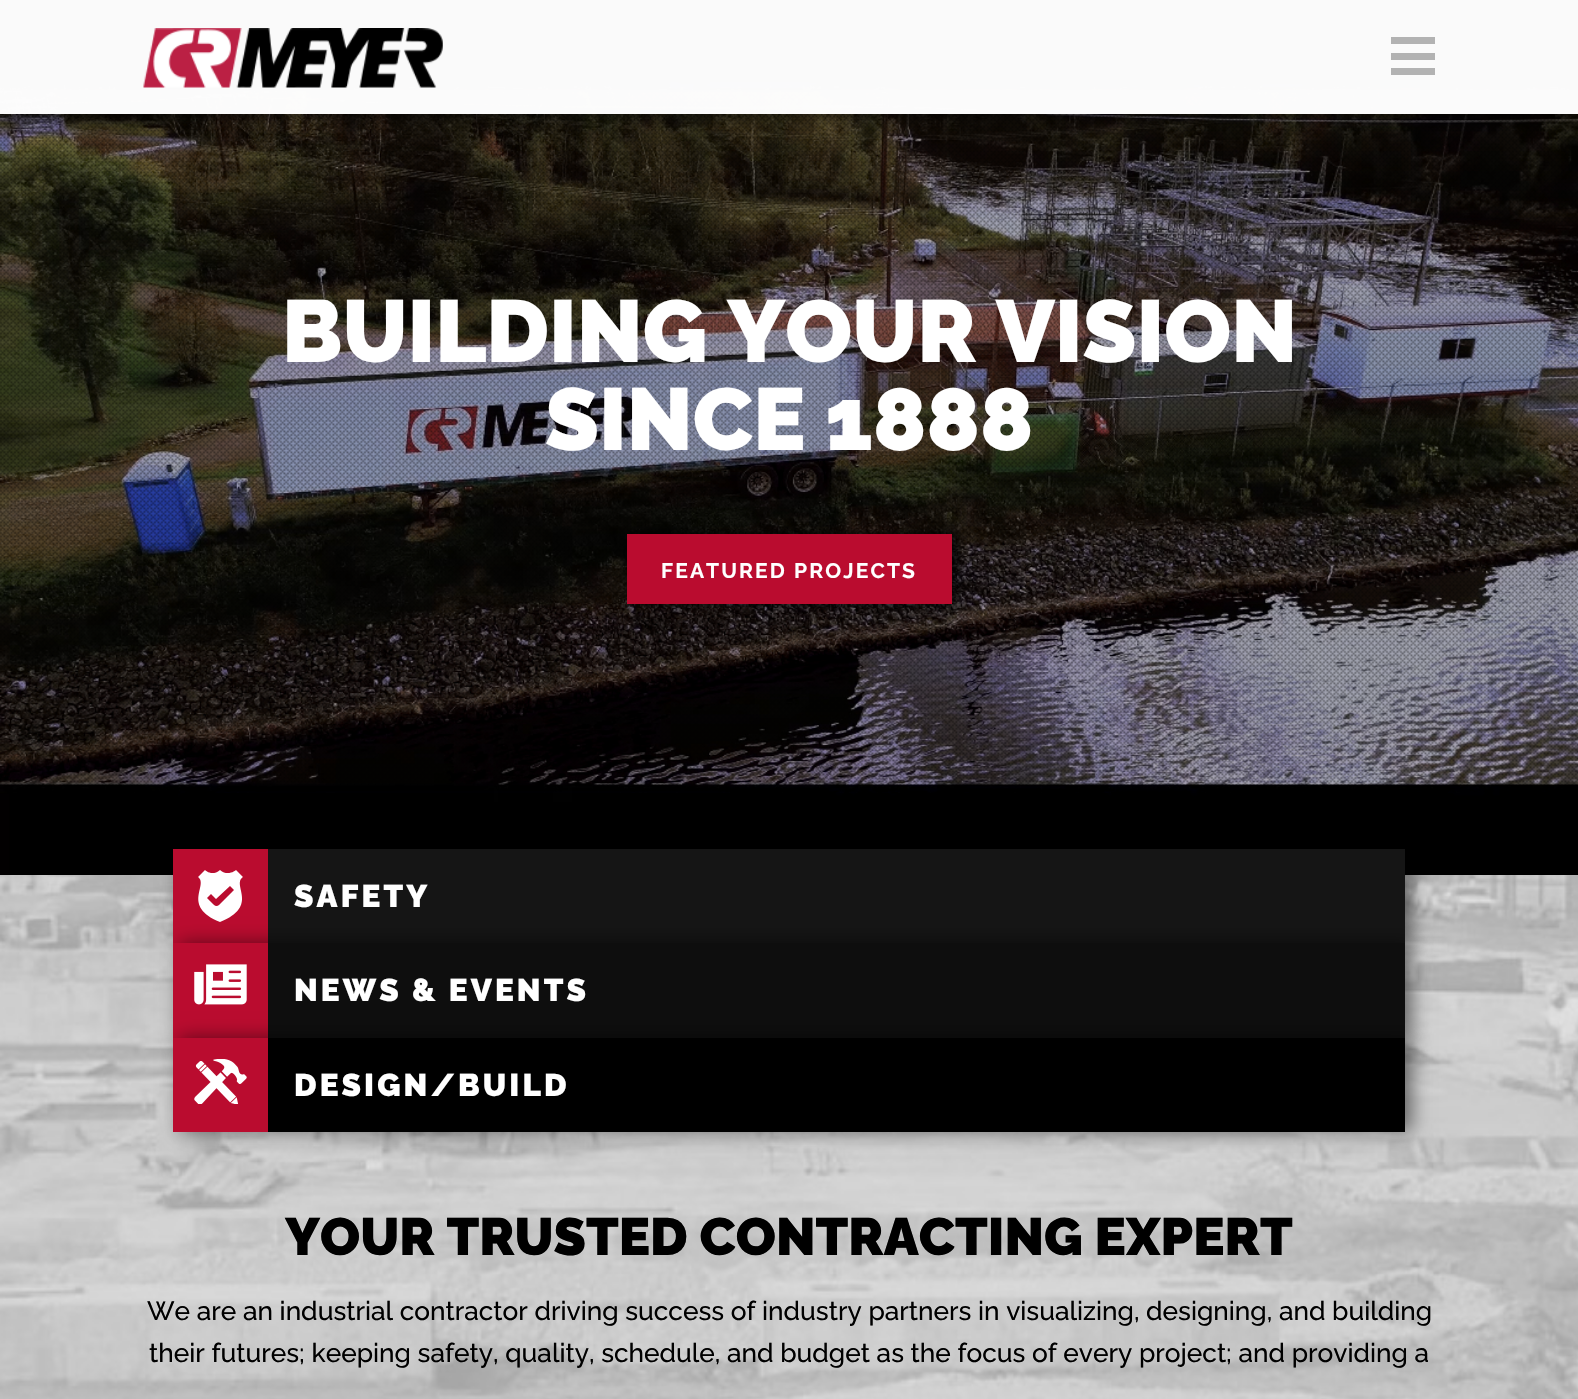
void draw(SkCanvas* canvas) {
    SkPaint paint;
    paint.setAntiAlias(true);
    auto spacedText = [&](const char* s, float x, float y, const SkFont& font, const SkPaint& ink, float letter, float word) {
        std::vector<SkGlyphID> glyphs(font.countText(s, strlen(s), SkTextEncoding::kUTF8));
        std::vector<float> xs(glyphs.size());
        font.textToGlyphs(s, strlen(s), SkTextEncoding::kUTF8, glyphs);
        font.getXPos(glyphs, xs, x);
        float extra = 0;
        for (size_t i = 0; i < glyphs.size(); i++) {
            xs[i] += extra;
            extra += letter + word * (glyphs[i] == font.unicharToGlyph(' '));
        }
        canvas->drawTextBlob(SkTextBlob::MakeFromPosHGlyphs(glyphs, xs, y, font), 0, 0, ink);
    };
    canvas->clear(0xFFFFFFFF);
    canvas->drawImageRect(SkImages::DeferredFromEncodedData(SkData::MakeFromFileName("img2.png")), SkRect::MakeXYWH(0, 0, 1578, 875), SkSamplingOptions());
    canvas->drawImageRect(SkImages::DeferredFromEncodedData(SkData::MakeFromFileName("img3.png")), SkRect::MakeXYWH(0, 90, 1578, 698), SkSamplingOptions());
    canvas->save();
    canvas->clipPath(SkPathBuilder(SkPathFillType::kEvenOdd).moveTo(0, 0).lineTo(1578, 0).lineTo(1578, 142).lineTo(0, 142).close().moveTo(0, 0).lineTo(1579, 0).lineTo(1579, 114).lineTo(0, 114).close().detach(), true);
    paint.setColor(0xD1000000);
    paint.setMaskFilter(SkMaskFilter::MakeBlur(kNormal_SkBlurStyle, 9));
    canvas->drawRect(SkRect::MakeXYWH(0, 0, 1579, 114), paint);
    paint.setMaskFilter(nullptr);
    canvas->restore();
    paint.setColor(0xFAFFFFFF);
    canvas->drawRect(SkRect::MakeXYWH(0, 0, 1578, 114), paint);
    canvas->drawImageRect(SkImages::DeferredFromEncodedData(SkData::MakeFromFileName("img1.png")), SkRect::MakeXYWH(143, 28, 300, 60), SkSamplingOptions());
    paint.setColor(0xFFB2B2B2);
    canvas->drawRect(SkRect::MakeXYWH(1391, 68, 44, 7), paint);
    canvas->drawRect(SkRect::MakeXYWH(1391, 37, 44, 7), paint);
    canvas->drawRect(SkRect::MakeXYWH(1391, 53, 44, 7), paint);
    SkFont font1(fontMgr->matchFamilyStyle("Raleway", SkFontStyle(900, SkFontStyle::kNormal_Width, SkFontStyle::kUpright_Slant)), 87.5f);
    font1.setSubpixel(true);
    paint.setColor(0xFFFFFFFF);
    canvas->drawString("BUILDING YOUR VISION", 282, 362, font1, paint);
    canvas->drawString("SINCE 1888", 545, 450, font1, paint);
    paint.setColor(0xD1000000);
    paint.setMaskFilter(SkMaskFilter::MakeBlur(kNormal_SkBlurStyle, 5));
    canvas->drawRect(SkRect::MakeXYWH(632, 534, 325, 70), paint);
    paint.setMaskFilter(nullptr);
    paint.setColor(0xFFBA0C2F);
    canvas->drawRect(SkRect::MakeXYWH(627, 534, 325, 70), paint);
    SkFont font2(fontMgr->matchFamilyStyle("Raleway", SkFontStyle::Bold()), 21);
    font2.setSubpixel(true);
    paint.setColor(0xFFFFFFFF);
    spacedText("FEATURED PROJECTS", 661, 578, font2, paint, 2.1f, 0);
    canvas->drawImageRect(SkImages::DeferredFromEncodedData(SkData::MakeFromFileName("img4.png")), SkRect::MakeXYWH(0, 875, 1578, 524), SkSamplingOptions());
    paint.setColor(0x80000000);
    paint.setMaskFilter(SkMaskFilter::MakeBlur(kNormal_SkBlurStyle, 9));
    canvas->drawRect(SkRect::MakeXYWH(180, 849, 1232, 94), paint);
    paint.setMaskFilter(nullptr);
    paint.setColor(0xFF151515);
    canvas->drawRect(SkRect::MakeXYWH(268, 849, 1137, 94), paint);
    paint.setColor(0xFFBA0C2F);
    canvas->drawRect(SkRect::MakeXYWH(173, 849, 95, 94), paint);
    paint.setColor(0xFFFFFFFF);
    canvas->drawPath(SkPathBuilder().moveTo(243, 877).lineTo(236, 870).cubicTo(236, 870, 228, 877, 220, 870).cubicTo(212, 877, 205, 870, 205, 870).lineTo(198, 877).cubicTo(209, 885, 181, 906, 220, 922).cubicTo(260, 906, 231, 885, 243, 877).close().moveTo(219, 905).cubicTo(216, 908, 213, 904, 212, 903).lineTo(207, 898).lineTo(211, 894).lineTo(216, 899).lineTo(230, 886).lineTo(234, 890).close().detach(), paint);
    SkFont font3(fontMgr->matchFamilyStyle("Raleway", SkFontStyle(900, SkFontStyle::kNormal_Width, SkFontStyle::kUpright_Slant)), 31.5f);
    font3.setSubpixel(true);
    spacedText("SAFETY", 294, 907, font3, paint, 3.1f, 0);
    paint.setColor(0x80000000);
    paint.setMaskFilter(SkMaskFilter::MakeBlur(kNormal_SkBlurStyle, 9));
    canvas->drawRect(SkRect::MakeXYWH(180, 943, 1232, 95), paint);
    paint.setMaskFilter(nullptr);
    paint.setColor(0xFF0E0E0E);
    canvas->drawRect(SkRect::MakeXYWH(268, 943, 1137, 95), paint);
    paint.setColor(0xFFBA0C2F);
    canvas->drawRect(SkRect::MakeXYWH(173, 943, 95, 95), paint);
    canvas->drawImageRect(SkImages::DeferredFromEncodedData(SkData::MakeFromFileName("img5.png")), SkRect::MakeXYWH(194, 964, 53, 41), SkSamplingOptions());
    paint.setColor(0xFFFFFFFF);
    spacedText("NEWS & EVENTS", 294, 1001, font3, paint, 3.1f, 0);
    paint.setColor(0x80000000);
    paint.setMaskFilter(SkMaskFilter::MakeBlur(kNormal_SkBlurStyle, 9));
    canvas->drawRect(SkRect::MakeXYWH(180, 1038, 1232, 94), paint);
    paint.setMaskFilter(nullptr);
    paint.setColor(0xFF000000);
    canvas->drawRect(SkRect::MakeXYWH(268, 1038, 1137, 94), paint);
    paint.setColor(0xFFBA0C2F);
    canvas->drawRect(SkRect::MakeXYWH(173, 1038, 95, 94), paint);
    canvas->drawImageRect(SkImages::DeferredFromEncodedData(SkData::MakeFromFileName("img6.png")), SkRect::MakeXYWH(194, 1059, 53, 45), SkSamplingOptions());
    paint.setColor(0xFFFFFFFF);
    spacedText("DESIGN/BUILD", 294, 1096, font3, paint, 3.1f, 0);
    SkFont font4(fontMgr->matchFamilyStyle("Raleway", SkFontStyle(900, SkFontStyle::kNormal_Width, SkFontStyle::kUpright_Slant)), 52.5f);
    font4.setSubpixel(true);
    paint.setColor(0xFF000000);
    canvas->drawString("YOUR TRUSTED CONTRACTING EXPERT", 285, 1255, font4, paint);
    SkFont font5(fontMgr->matchFamilyStyle("Raleway", SkFontStyle(500, SkFontStyle::kNormal_Width, SkFontStyle::kUpright_Slant)), 26.25f);
    font5.setSubpixel(true);
    canvas->drawString("We are an industrial contractor driving success of industry partners in visualizing, designing, and building", 147, 1320, font5, paint);
    canvas->drawString("their futures; keeping safety, quality, schedule, and budget as the focus of every project; and providing a", 149, 1362, font5, paint);
}
